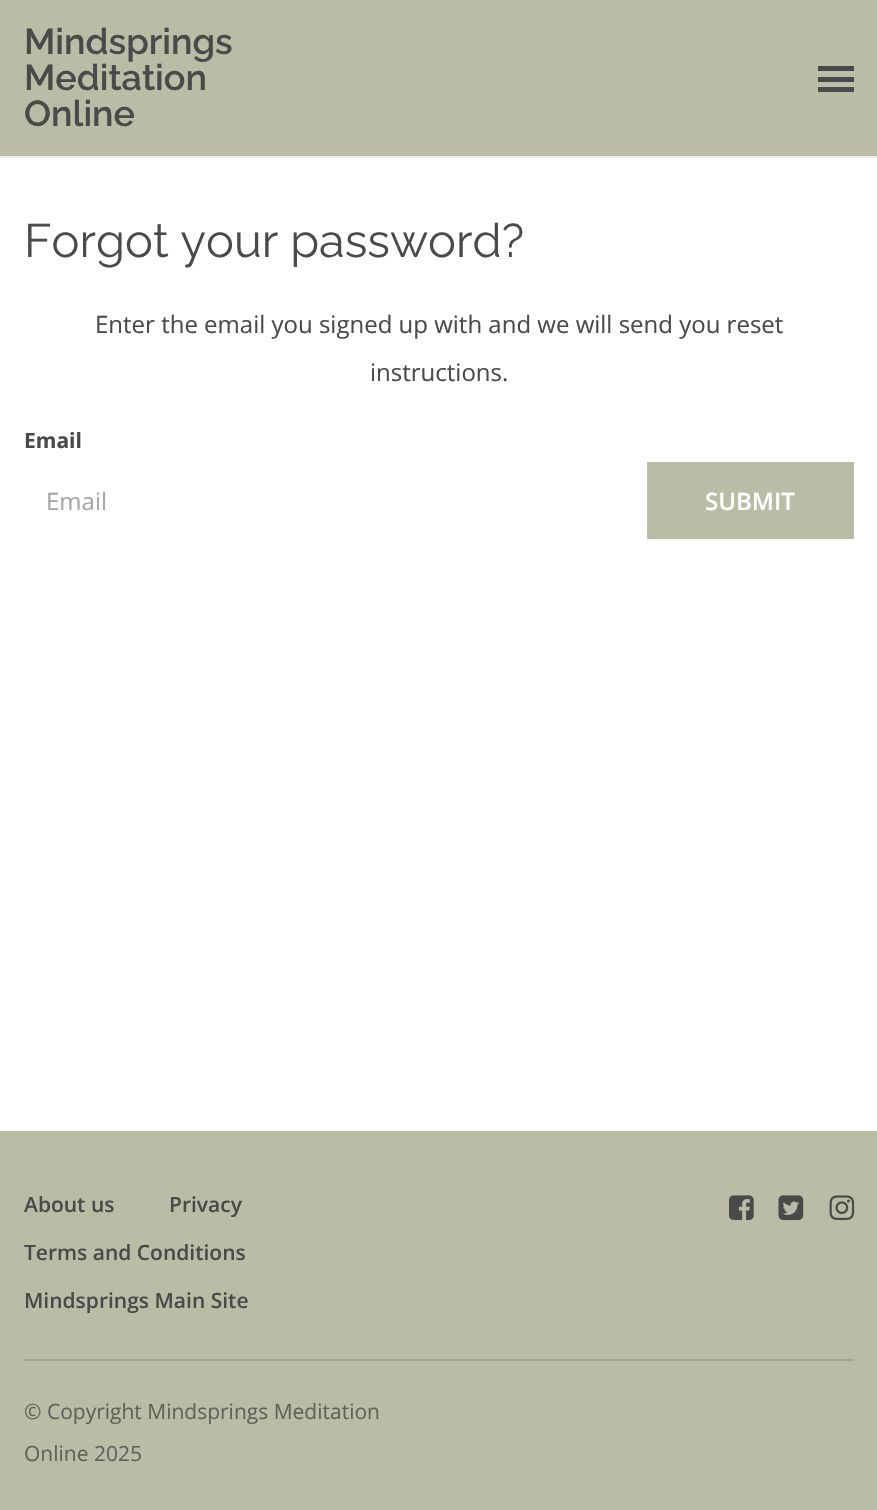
void draw(SkCanvas* canvas) {
    SkPaint paint;
    paint.setAntiAlias(true);
    canvas->clear(0xFFFFFFFF);
    paint.setColor(0xFFBBBCA6);
    canvas->drawRect(SkRect::MakeXYWH(0, 0, 877, 156), paint);
    paint.setColor(0xFFECEEEF);
    canvas->drawRect(SkRect::MakeXYWH(0, 156, 877, 2), paint);
    SkFont font1(fontMgr->matchFamilyStyle("Raleway", SkFontStyle(600, SkFontStyle::kNormal_Width, SkFontStyle::kUpright_Slant)), 36);
    font1.setSubpixel(true);
    paint.setColor(0xFF4A4A4A);
    canvas->drawString("Mindsprings", 24, 54, font1, paint);
    canvas->drawString("Meditation", 24, 90, font1, paint);
    canvas->drawString("Online", 24, 126, font1, paint);
    canvas->drawRect(SkRect::MakeXYWH(818, 77, 36, 5), paint);
    canvas->drawRect(SkRect::MakeXYWH(818, 66, 36, 5), paint);
    canvas->drawRect(SkRect::MakeXYWH(818, 87, 36, 5), paint);
    SkFont font2(fontMgr->matchFamilyStyle("Raleway", SkFontStyle::Normal()), 46.9f);
    font2.setSubpixel(true);
    canvas->drawString("Forgot your password?", 24, 257, font2, paint);
    SkFont font3(fontMgr->matchFamilyStyle("Open Sans", SkFontStyle::Normal()), 24);
    font3.setSubpixel(true);
    canvas->drawString("Enter the email you signed up with and we will send you reset", 95, 333, font3, paint);
    canvas->drawString("instructions.", 370, 381, font3, paint);
    SkFont font4(fontMgr->matchFamilyStyle("Open Sans", SkFontStyle::Bold()), 21);
    font4.setSubpixel(true);
    canvas->drawString("Email", 24, 448, font4, paint);
    paint.setColor(0xFFA5A5A5);
    canvas->drawString("Email", 46, 510, font3, paint);
    paint.setColor(0xFFBBBCA6);
    canvas->drawRect(SkRect::MakeXYWH(647, 462, 207, 77), paint);
    SkFont font5(fontMgr->matchFamilyStyle("Open Sans", SkFontStyle(600, SkFontStyle::kNormal_Width, SkFontStyle::kUpright_Slant)), 24);
    font5.setSubpixel(true);
    paint.setColor(0xFFFFFFFF);
    canvas->drawString("SUBMIT", 705, 510, font5, paint);
    paint.setColor(0xFFBBBCA6);
    canvas->drawRect(SkRect::MakeXYWH(0, 1131, 877, 379), paint);
    SkFont font6(fontMgr->matchFamilyStyle("Open Sans", SkFontStyle(600, SkFontStyle::kNormal_Width, SkFontStyle::kUpright_Slant)), 21);
    font6.setSubpixel(true);
    paint.setColor(0xFF4A4A4A);
    canvas->drawString("About us", 24, 1212, font6, paint);
    canvas->drawString("Privacy", 169, 1212, font6, paint);
    canvas->drawString("Terms and Conditions", 24, 1260, font6, paint);
    canvas->drawString("Mindsprings Main Site", 24, 1308, font6, paint);
    canvas->drawImageRect(SkImages::DeferredFromEncodedData(SkData::MakeFromFileName("img1.png")), SkRect::MakeXYWH(729, 1195, 25, 26), SkSamplingOptions());
    canvas->drawImageRect(SkImages::DeferredFromEncodedData(SkData::MakeFromFileName("img2.png")), SkRect::MakeXYWH(778, 1195, 26, 26), SkSamplingOptions());
    canvas->drawImageRect(SkImages::DeferredFromEncodedData(SkData::MakeFromFileName("img3.png")), SkRect::MakeXYWH(829, 1195, 26, 26), SkSamplingOptions());
    paint.setColor(0xFFA4A594);
    canvas->drawRect(SkRect::MakeXYWH(24, 1359, 830, 2), paint);
    SkFont font7(fontMgr->matchFamilyStyle("Open Sans", SkFontStyle::Normal()), 21);
    font7.setSubpixel(true);
    paint.setColor(0xFF61615C);
    canvas->drawString("© Copyright Mindsprings Meditation", 24, 1419, font7, paint);
    canvas->drawString("Online 2025", 24, 1461, font7, paint);
}
